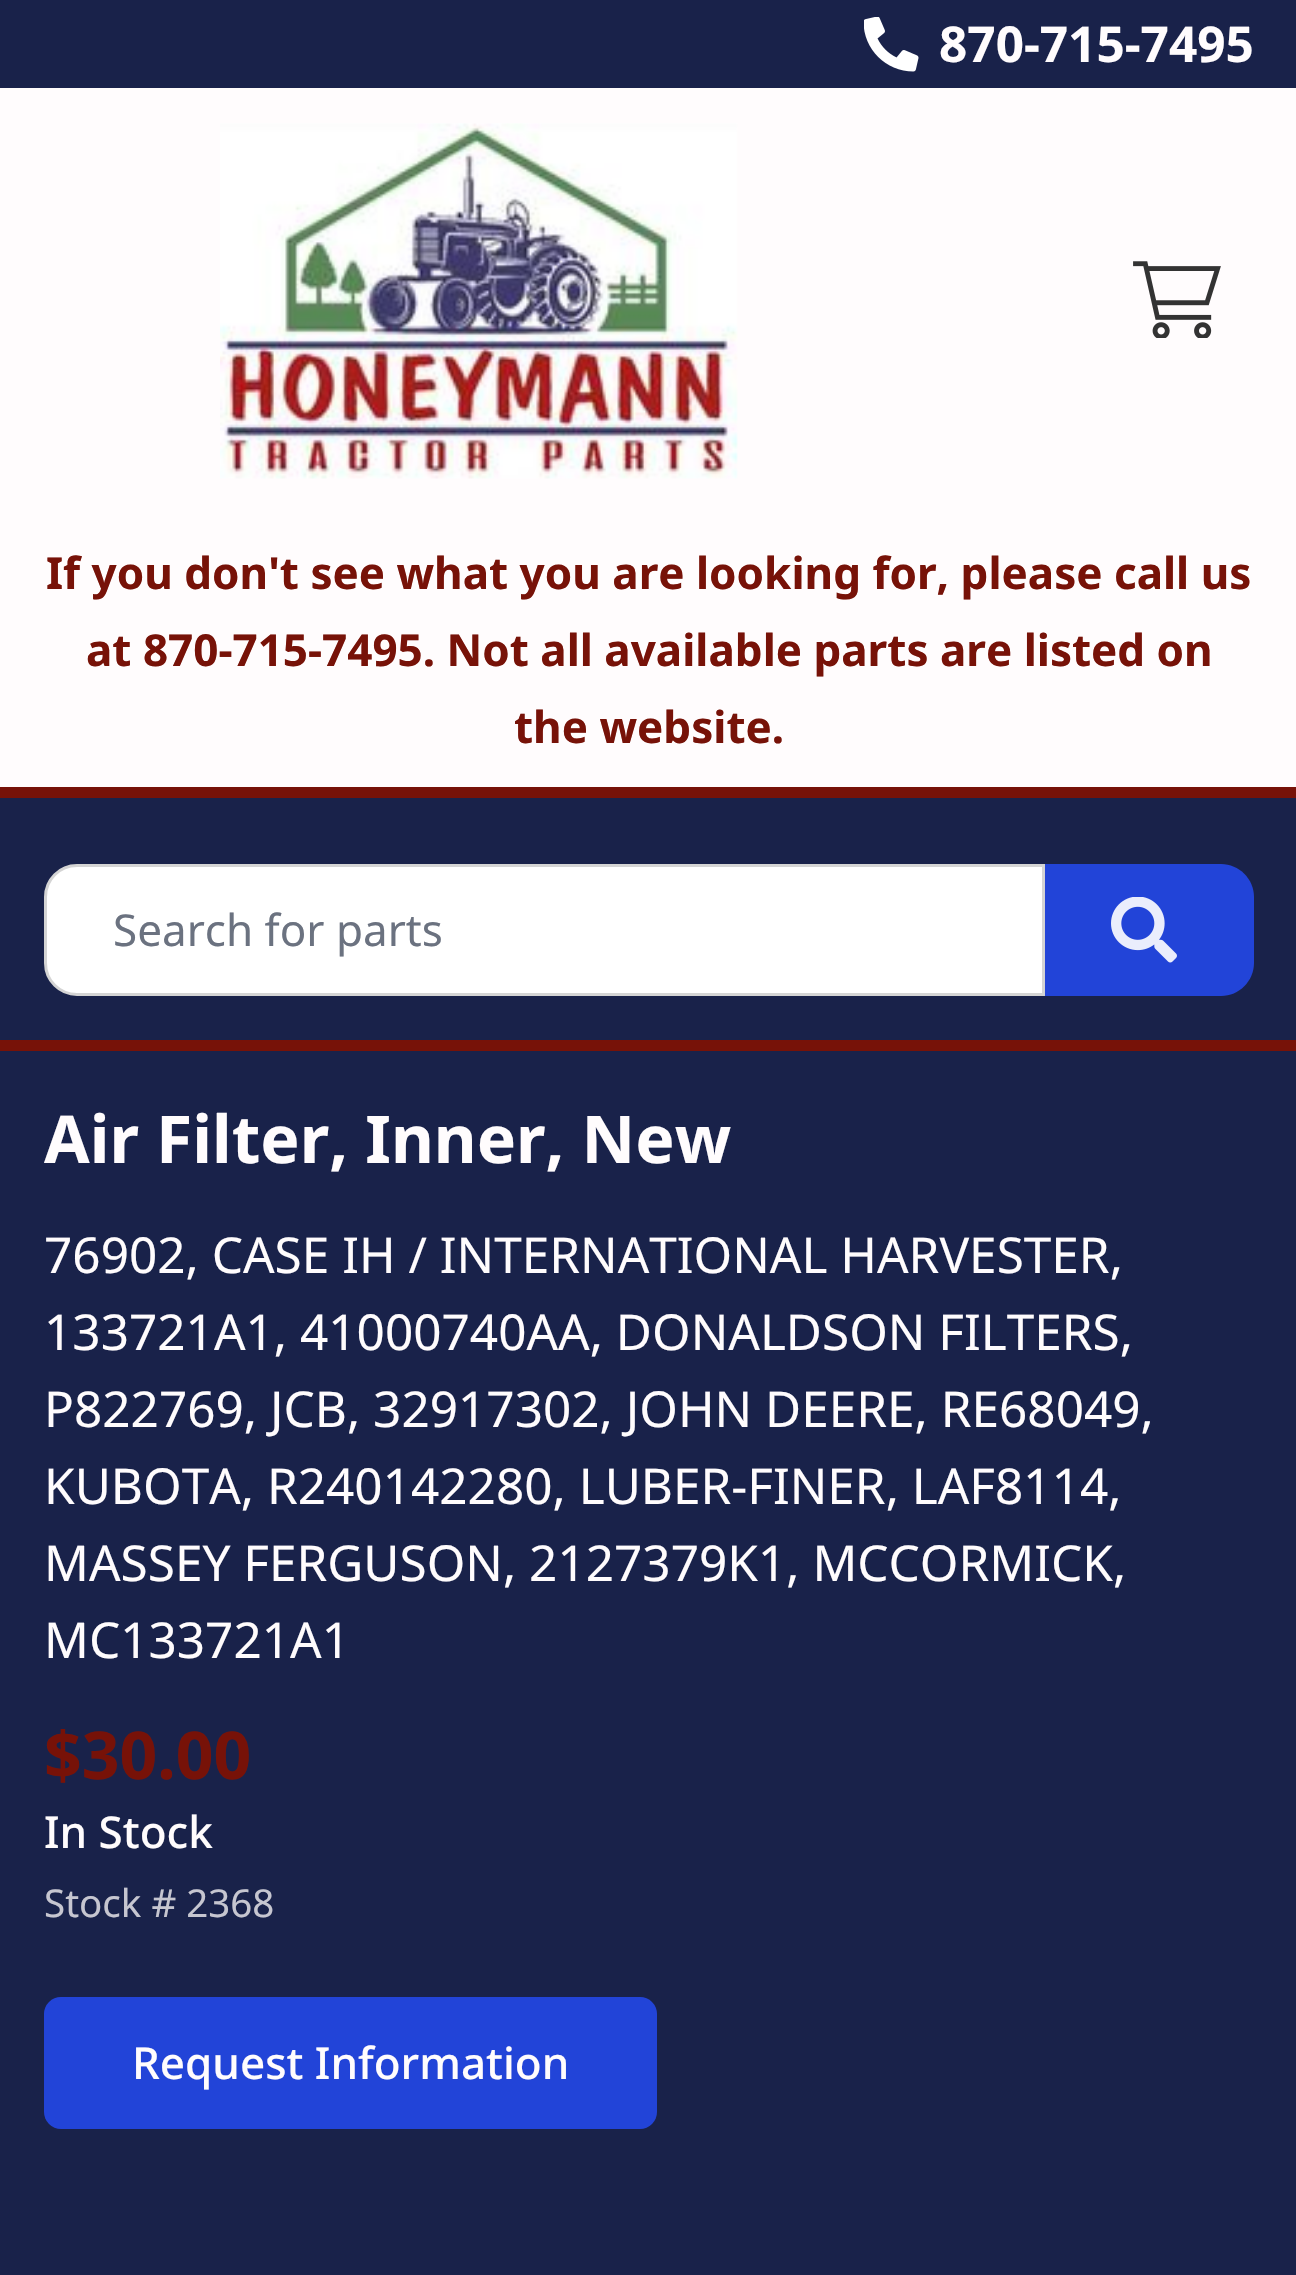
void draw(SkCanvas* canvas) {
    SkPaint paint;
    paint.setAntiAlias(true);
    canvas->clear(0xFF19224A);
    canvas->drawImageRect(SkImages::DeferredFromEncodedData(SkData::MakeFromFileName("img1.png")), SkRect::MakeXYWH(864, 17, 55, 55), SkSamplingOptions());
    SkFont font1(fontMgr->matchFamilyStyle("Noto Sans", SkFontStyle::Bold()), 49.5f);
    font1.setSubpixel(true);
    paint.setColor(0xFFFFFCFD);
    canvas->drawString("870-715-7495", 939, 62, font1, paint);
    canvas->drawRect(SkRect::MakeXYWH(0, 88, 1296, 699), paint);
    canvas->drawImageRect(SkImages::DeferredFromEncodedData(SkData::MakeFromFileName("img2.png")), SkRect::MakeXYWH(220, 123, 518, 356), SkSamplingOptions());
    canvas->drawImageRect(SkImages::DeferredFromEncodedData(SkData::MakeFromFileName("img3.png")), SkRect::MakeXYWH(1133, 261, 88, 77), SkSamplingOptions());
    SkFont font2(fontMgr->matchFamilyStyle("Noto Sans", SkFontStyle::Bold()), 44);
    font2.setSubpixel(true);
    paint.setColor(0xFF771208);
    canvas->drawString("If you don't see what you are looking for, please call us", 46, 589, font2, paint);
    canvas->drawString("at 870-715-7495. Not all available parts are listed on", 86, 666, font2, paint);
    canvas->drawString("the website.", 514, 743, font2, paint);
    canvas->drawRect(SkRect::MakeXYWH(0, 787, 1296, 11), paint);
    paint.setColor(0xFFFFFFFF);
    canvas->drawPath(SkPathBuilder().moveTo(77, 865.5f).lineTo(1043.5f, 865.5f).lineTo(1043.5f, 994.5f).lineTo(77, 994.5f).cubicTo(59.5f, 994.5f, 45.5f, 980.5f, 45.5f, 963).lineTo(45.5f, 897).cubicTo(45.5f, 879.5f, 59.5f, 865.5f, 77, 865.5f).close().detach(), paint);
    paint.setStyle(SkPaint::kStroke_Style);
    paint.setStrokeWidth(3);
    paint.setColor(0xFFD4D4D4);
    canvas->drawPath(SkPathBuilder().moveTo(77, 865.5f).lineTo(1043.5f, 865.5f).lineTo(1043.5f, 994.5f).lineTo(77, 994.5f).cubicTo(59.5f, 994.5f, 45.5f, 980.5f, 45.5f, 963).lineTo(45.5f, 897).cubicTo(45.5f, 879.5f, 59.5f, 865.5f, 77, 865.5f).close().detach(), paint);
    SkFont font3(fontMgr->matchFamilyStyle("Noto Sans", SkFontStyle::Normal()), 44);
    font3.setSubpixel(true);
    paint.setStyle(SkPaint::kFill_Style);
    paint.setColor(0xFF6B7280);
    canvas->drawString("Search for parts", 113, 946, font3, paint);
    paint.setColor(0xFF2244D8);
    canvas->drawPath(SkPathBuilder().moveTo(1045, 864).lineTo(1221, 864).cubicTo(1239, 864, 1254, 879, 1254, 897).lineTo(1254, 963).cubicTo(1254, 981, 1239, 996, 1221, 996).lineTo(1045, 996).close().detach(), paint);
    canvas->drawImageRect(SkImages::DeferredFromEncodedData(SkData::MakeFromFileName("img4.png")), SkRect::MakeXYWH(1111, 897, 66, 66), SkSamplingOptions());
    paint.setColor(0xFF771208);
    canvas->drawRect(SkRect::MakeXYWH(0, 1040, 1296, 11), paint);
    SkFont font4(fontMgr->matchFamilyStyle("Noto Sans", SkFontStyle::Bold()), 66);
    font4.setSubpixel(true);
    paint.setColor(0xFFFFFCFD);
    canvas->drawString("Air Filter, Inner, New", 44, 1163, font4, paint);
    SkFont font5(fontMgr->matchFamilyStyle("Noto Sans", SkFontStyle::Normal()), 49.5f);
    font5.setSubpixel(true);
    canvas->drawString("76902, CASE IH / INTERNATIONAL HARVESTER,", 44, 1273, font5, paint);
    canvas->drawString("133721A1, 41000740AA, DONALDSON FILTERS,", 44, 1350, font5, paint);
    canvas->drawString("P822769, JCB, 32917302, JOHN DEERE, RE68049,", 44, 1427, font5, paint);
    canvas->drawString("KUBOTA, R240142280, LUBER-FINER, LAF8114,", 44, 1504, font5, paint);
    canvas->drawString("MASSEY FERGUSON, 2127379K1, MCCORMICK,", 44, 1581, font5, paint);
    canvas->drawString("MC133721A1", 44, 1658, font5, paint);
    paint.setColor(0xFF771208);
    canvas->drawString("$30.00", 44, 1779, font4, paint);
    SkFont font6(fontMgr->matchFamilyStyle("Noto Sans", SkFontStyle(500, SkFontStyle::kNormal_Width, SkFontStyle::kUpright_Slant)), 44);
    font6.setSubpixel(true);
    paint.setColor(0xFFFFFCFD);
    canvas->drawString("In Stock", 44, 1848, font6, paint);
    SkFont font7(fontMgr->matchFamilyStyle("Noto Sans", SkFontStyle::Normal()), 38.5f);
    font7.setSubpixel(true);
    paint.setColor(0xFFC6C6D0);
    canvas->drawString("Stock # 2368", 44, 1917, font7, paint);
    paint.setColor(0xFF2244D8);
    canvas->drawRoundRect(SkRect::MakeXYWH(44, 1997, 613, 132), 17, 17, paint);
    paint.setColor(0xFFFFFCFD);
    canvas->drawString("Request Information", 132, 2079, font6, paint);
}
